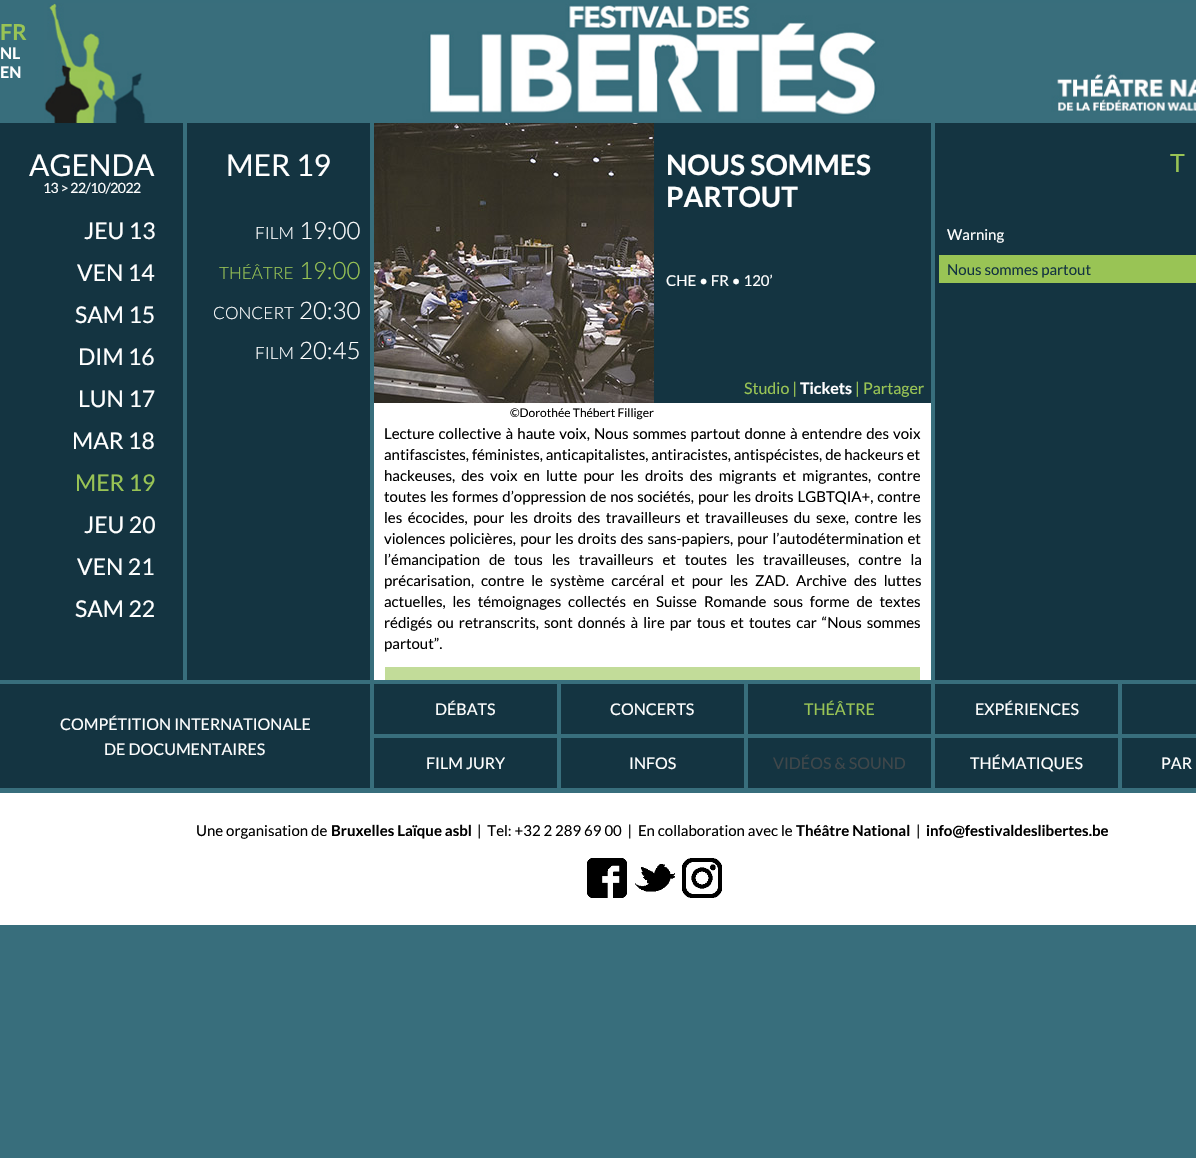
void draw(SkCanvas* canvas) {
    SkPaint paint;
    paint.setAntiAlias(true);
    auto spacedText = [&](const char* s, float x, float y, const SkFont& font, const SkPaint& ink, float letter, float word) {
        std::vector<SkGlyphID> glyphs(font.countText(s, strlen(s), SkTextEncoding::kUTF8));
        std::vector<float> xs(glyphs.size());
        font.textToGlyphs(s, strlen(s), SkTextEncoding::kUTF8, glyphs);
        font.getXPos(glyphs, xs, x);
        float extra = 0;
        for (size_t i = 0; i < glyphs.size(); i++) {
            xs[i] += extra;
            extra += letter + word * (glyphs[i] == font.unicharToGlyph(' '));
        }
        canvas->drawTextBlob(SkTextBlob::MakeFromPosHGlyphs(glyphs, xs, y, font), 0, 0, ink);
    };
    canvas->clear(0xFF386E7C);
    canvas->drawImageRect(SkImages::DeferredFromEncodedData(SkData::MakeFromFileName("img1.png")), SkRect::MakeXYWH(44, 3, 1152, 120), SkSamplingOptions());
    SkFont font1(fontMgr->matchFamilyStyle("Lato", SkFontStyle::Bold()), 22);
    font1.setSubpixel(true);
    paint.setColor(0xFF99C455);
    canvas->drawString("FR", 0, 40, font1, paint);
    SkFont font2(fontMgr->matchFamilyStyle("Lato", SkFontStyle::Bold()), 16);
    font2.setSubpixel(true);
    paint.setColor(0xFFFFFFFF);
    canvas->drawString("NL", 0, 59, font2, paint);
    canvas->drawString("EN", 0, 78, font2, paint);
    paint.setColor(0xFF143441);
    canvas->drawRect(SkRect::MakeXYWH(0, 123, 183, 557), paint);
    SkFont font3(fontMgr->matchFamilyStyle("Lato", SkFontStyle::Normal()), 30);
    font3.setSubpixel(true);
    paint.setColor(0xFFFFFFFF);
    canvas->drawString("AGENDA", 29, 176, font3, paint);
    SkFont font4(fontMgr->matchFamilyStyle("Lato", SkFontStyle::Normal()), 14);
    font4.setSubpixel(true);
    spacedText("13 > 22/10/2022", 43, 193, font4, paint, -0.5f, 0);
    SkFont font5(fontMgr->matchFamilyStyle("Lato", SkFontStyle::Normal()), 23);
    font5.setSubpixel(true);
    canvas->drawString("JEU 13", 84, 239, font5, paint);
    canvas->drawString("VEN 14", 77, 281, font5, paint);
    canvas->drawString("SAM 15", 75, 323, font5, paint);
    canvas->drawString("DIM 16", 78, 365, font5, paint);
    canvas->drawString("LUN 17", 78, 407, font5, paint);
    canvas->drawString("MAR 18", 72, 449, font5, paint);
    paint.setColor(0xFF99C455);
    canvas->drawString("MER 19", 75, 491, font5, paint);
    paint.setColor(0xFFFFFFFF);
    canvas->drawString("JEU 20", 84, 533, font5, paint);
    canvas->drawString("VEN 21", 77, 575, font5, paint);
    canvas->drawString("SAM 22", 75, 617, font5, paint);
    paint.setColor(0xFF143441);
    canvas->drawRect(SkRect::MakeXYWH(187, 123, 183, 557), paint);
    paint.setColor(0xFFFFFFFF);
    canvas->drawString("MER 19", 226, 176, font3, paint);
    SkFont font6(fontMgr->matchFamilyStyle("Lato", SkFontStyle(300, SkFontStyle::kNormal_Width, SkFontStyle::kUpright_Slant)), 17);
    font6.setSubpixel(true);
    canvas->drawString("FILM", 255, 239, font6, paint);
    SkFont font7(fontMgr->matchFamilyStyle("Lato", SkFontStyle(300, SkFontStyle::kNormal_Width, SkFontStyle::kUpright_Slant)), 24);
    font7.setSubpixel(true);
    canvas->drawString("19:00", 299, 239, font7, paint);
    paint.setColor(0xFF99C455);
    canvas->drawString("THÉÂTRE", 219, 279, font6, paint);
    canvas->drawString("19:00", 299, 279, font7, paint);
    paint.setColor(0xFFFFFFFF);
    canvas->drawString("CONCERT", 213, 319, font6, paint);
    canvas->drawString("20:30", 299, 319, font7, paint);
    canvas->drawString("FILM", 255, 359, font6, paint);
    canvas->drawString("20:45", 299, 359, font7, paint);
    canvas->drawRect(SkRect::MakeXYWH(374, 403, 557, 277), paint);
    paint.setColor(0xFF143441);
    canvas->drawRect(SkRect::MakeXYWH(654, 123, 277, 280), paint);
    canvas->drawImageRect(SkImages::DeferredFromEncodedData(SkData::MakeFromFileName("img2.png")), SkRect::MakeXYWH(374, 123, 280, 280), SkSamplingOptions());
    SkFont font8(fontMgr->matchFamilyStyle("Lato", SkFontStyle::Bold()), 28);
    font8.setSubpixel(true);
    paint.setColor(0xFFFFFFFF);
    canvas->drawString("NOUS SOMMES", 666, 175, font8, paint);
    canvas->drawString("PARTOUT", 666, 207, font8, paint);
    SkFont font9(fontMgr->matchFamilyStyle("Lato", SkFontStyle::Normal()), 15);
    font9.setSubpixel(true);
    canvas->drawString("CHE • FR • 120’", 666, 286, font9, paint);
    SkFont font10(fontMgr->matchFamilyStyle("Lato", SkFontStyle::Normal()), 16);
    font10.setSubpixel(true);
    paint.setColor(0xFF99C455);
    canvas->drawString("Studio |", 744, 394, font10, paint);
    paint.setColor(0xFFFFFFFF);
    canvas->drawString("Tickets", 800, 394, font2, paint);
    paint.setColor(0xFF99C455);
    canvas->drawString("| Partager", 855, 394, font10, paint);
    SkFont font11(fontMgr->matchFamilyStyle("Lato", SkFontStyle::Normal()), 12);
    font11.setSubpixel(true);
    paint.setColor(0xFF000000);
    canvas->drawString("©Dorothée Thébert Filliger", 510, 417, font11, paint);
    spacedText("Lecture collective à haute voix, Nous sommes partout donne à entendre des voix", 384, 439, font9, paint, 0, 1.25f);
    canvas->drawString("antifascistes, féministes, anticapitalistes, antiracistes, antispécistes, de hackeurs et", 384, 460, font9, paint);
    spacedText("hackeuses, des voix en lutte pour les droits des migrants et migrantes, contre", 384, 481, font9, paint, 0, 3.25f);
    spacedText("toutes les formes d’oppression de nos sociétés, pour les droits LGBTQIA+, contre", 384, 502, font9, paint, 0, 1);
    spacedText("les écocides, pour les droits des travailleurs et travailleuses du sexe, contre les", 384, 523, font9, paint, 0, 2.6f);
    spacedText("violences policières, pour les droits des sans-papiers, pour l’autodétermination et", 384, 544, font9, paint, 0, 1.25f);
    spacedText("l’émancipation de tous les travailleurs et toutes les travailleuses, contre la", 384, 565, font9, paint, 0, 6);
    spacedText("précarisation, contre le système carcéral et pour les ZAD. Archive des luttes", 384, 586, font9, paint, 0, 4.1f);
    spacedText("actuelles, les témoignages collectés en Suisse Romande sous forme de textes", 384, 607, font9, paint, 0, 4);
    spacedText("rédigés ou retranscrits, sont donnés à lire par tous et toutes car “Nous sommes", 384, 628, font9, paint, 0, 2.1f);
    canvas->drawString("partout”.", 384, 649, font9, paint);
    paint.setColor(0xFFC2DC99);
    canvas->drawRect(SkRect::MakeXYWH(385, 667, 535, 13), paint);
    paint.setColor(0xFF143441);
    canvas->drawRect(SkRect::MakeXYWH(935, 123, 261, 557), paint);
    SkFont font12(fontMgr->matchFamilyStyle("Lato", SkFontStyle::Normal()), 25);
    font12.setSubpixel(true);
    paint.setColor(0xFF99C455);
    spacedText("T", 1170, 172, font12, paint, 2, 0);
    paint.setColor(0xFFFFFFFF);
    canvas->drawString("Warning", 947, 240, font9, paint);
    paint.setColor(0xFF99C455);
    canvas->drawRect(SkRect::MakeXYWH(939, 255, 257, 28), paint);
    paint.setColor(0xFF143441);
    canvas->drawString("Nous sommes partout", 947, 275, font9, paint);
    canvas->drawRect(SkRect::MakeXYWH(374, 684, 183, 50), paint);
    paint.setColor(0xFFFFFFFF);
    canvas->drawString("DÉBATS", 435, 715, font10, paint);
    paint.setColor(0xFF143441);
    canvas->drawRect(SkRect::MakeXYWH(561, 684, 183, 50), paint);
    paint.setColor(0xFFFFFFFF);
    canvas->drawString("CONCERTS", 610, 715, font10, paint);
    paint.setColor(0xFF143441);
    canvas->drawRect(SkRect::MakeXYWH(748, 684, 183, 50), paint);
    paint.setColor(0xFF99C455);
    canvas->drawString("THÉÂTRE", 804, 715, font10, paint);
    paint.setColor(0xFF143441);
    canvas->drawRect(SkRect::MakeXYWH(935, 684, 183, 50), paint);
    paint.setColor(0xFFFFFFFF);
    canvas->drawString("EXPÉRIENCES", 975, 715, font10, paint);
    paint.setColor(0xFF143441);
    canvas->drawRect(SkRect::MakeXYWH(1122, 684, 74, 50), paint);
    canvas->drawRect(SkRect::MakeXYWH(0, 684, 370, 104), paint);
    paint.setColor(0xFFFFFFFF);
    canvas->drawString("COMPÉTITION INTERNATIONALE", 60, 730, font10, paint);
    canvas->drawString("DE DOCUMENTAIRES", 104, 755, font10, paint);
    paint.setColor(0xFF143441);
    canvas->drawRect(SkRect::MakeXYWH(374, 738, 183, 50), paint);
    paint.setColor(0xFFFFFFFF);
    canvas->drawString("FILM JURY", 426, 769, font10, paint);
    paint.setColor(0xFF143441);
    canvas->drawRect(SkRect::MakeXYWH(561, 738, 183, 50), paint);
    paint.setColor(0xFFFFFFFF);
    canvas->drawString("INFOS", 629, 769, font10, paint);
    paint.setColor(0xFF143441);
    canvas->drawRect(SkRect::MakeXYWH(748, 738, 183, 50), paint);
    paint.setColor(0xFF40474A);
    canvas->drawString("VIDÉOS & SOUND", 773, 769, font10, paint);
    paint.setColor(0xFF143441);
    canvas->drawRect(SkRect::MakeXYWH(935, 738, 183, 50), paint);
    paint.setColor(0xFFFFFFFF);
    canvas->drawString("THÉMATIQUES", 970, 769, font10, paint);
    paint.setColor(0xFF143441);
    canvas->drawRect(SkRect::MakeXYWH(1122, 738, 74, 50), paint);
    paint.setColor(0xFFFFFFFF);
    canvas->drawString("PAR", 1161, 769, font10, paint);
    canvas->drawRect(SkRect::MakeXYWH(0, 793, 1196, 132), paint);
    paint.setColor(0xFF000000);
    canvas->drawString("Une organisation de", 196, 836, font9, paint);
    SkFont font13(fontMgr->matchFamilyStyle("Lato", SkFontStyle::Bold()), 15);
    font13.setSubpixel(true);
    canvas->drawString("Bruxelles Laïque asbl", 331, 836, font13, paint);
    canvas->drawString("|  Tel: +32 2 289 69 00  |  En collaboration avec le", 477, 836, font9, paint);
    canvas->drawString("Théâtre National", 796, 836, font13, paint);
    canvas->drawString("|", 916, 836, font9, paint);
    canvas->drawString("info@festivaldeslibertes.be", 926, 836, font13, paint);
    canvas->drawImageRect(SkImages::DeferredFromEncodedData(SkData::MakeFromFileName("img3.png")), SkRect::MakeXYWH(587, 858, 40, 40), SkSamplingOptions());
    canvas->drawImageRect(SkImages::DeferredFromEncodedData(SkData::MakeFromFileName("img4.png")), SkRect::MakeXYWH(635, 864, 40, 28), SkSamplingOptions());
    canvas->drawImageRect(SkImages::DeferredFromEncodedData(SkData::MakeFromFileName("img5.png")), SkRect::MakeXYWH(682, 858, 40, 40), SkSamplingOptions());
}
